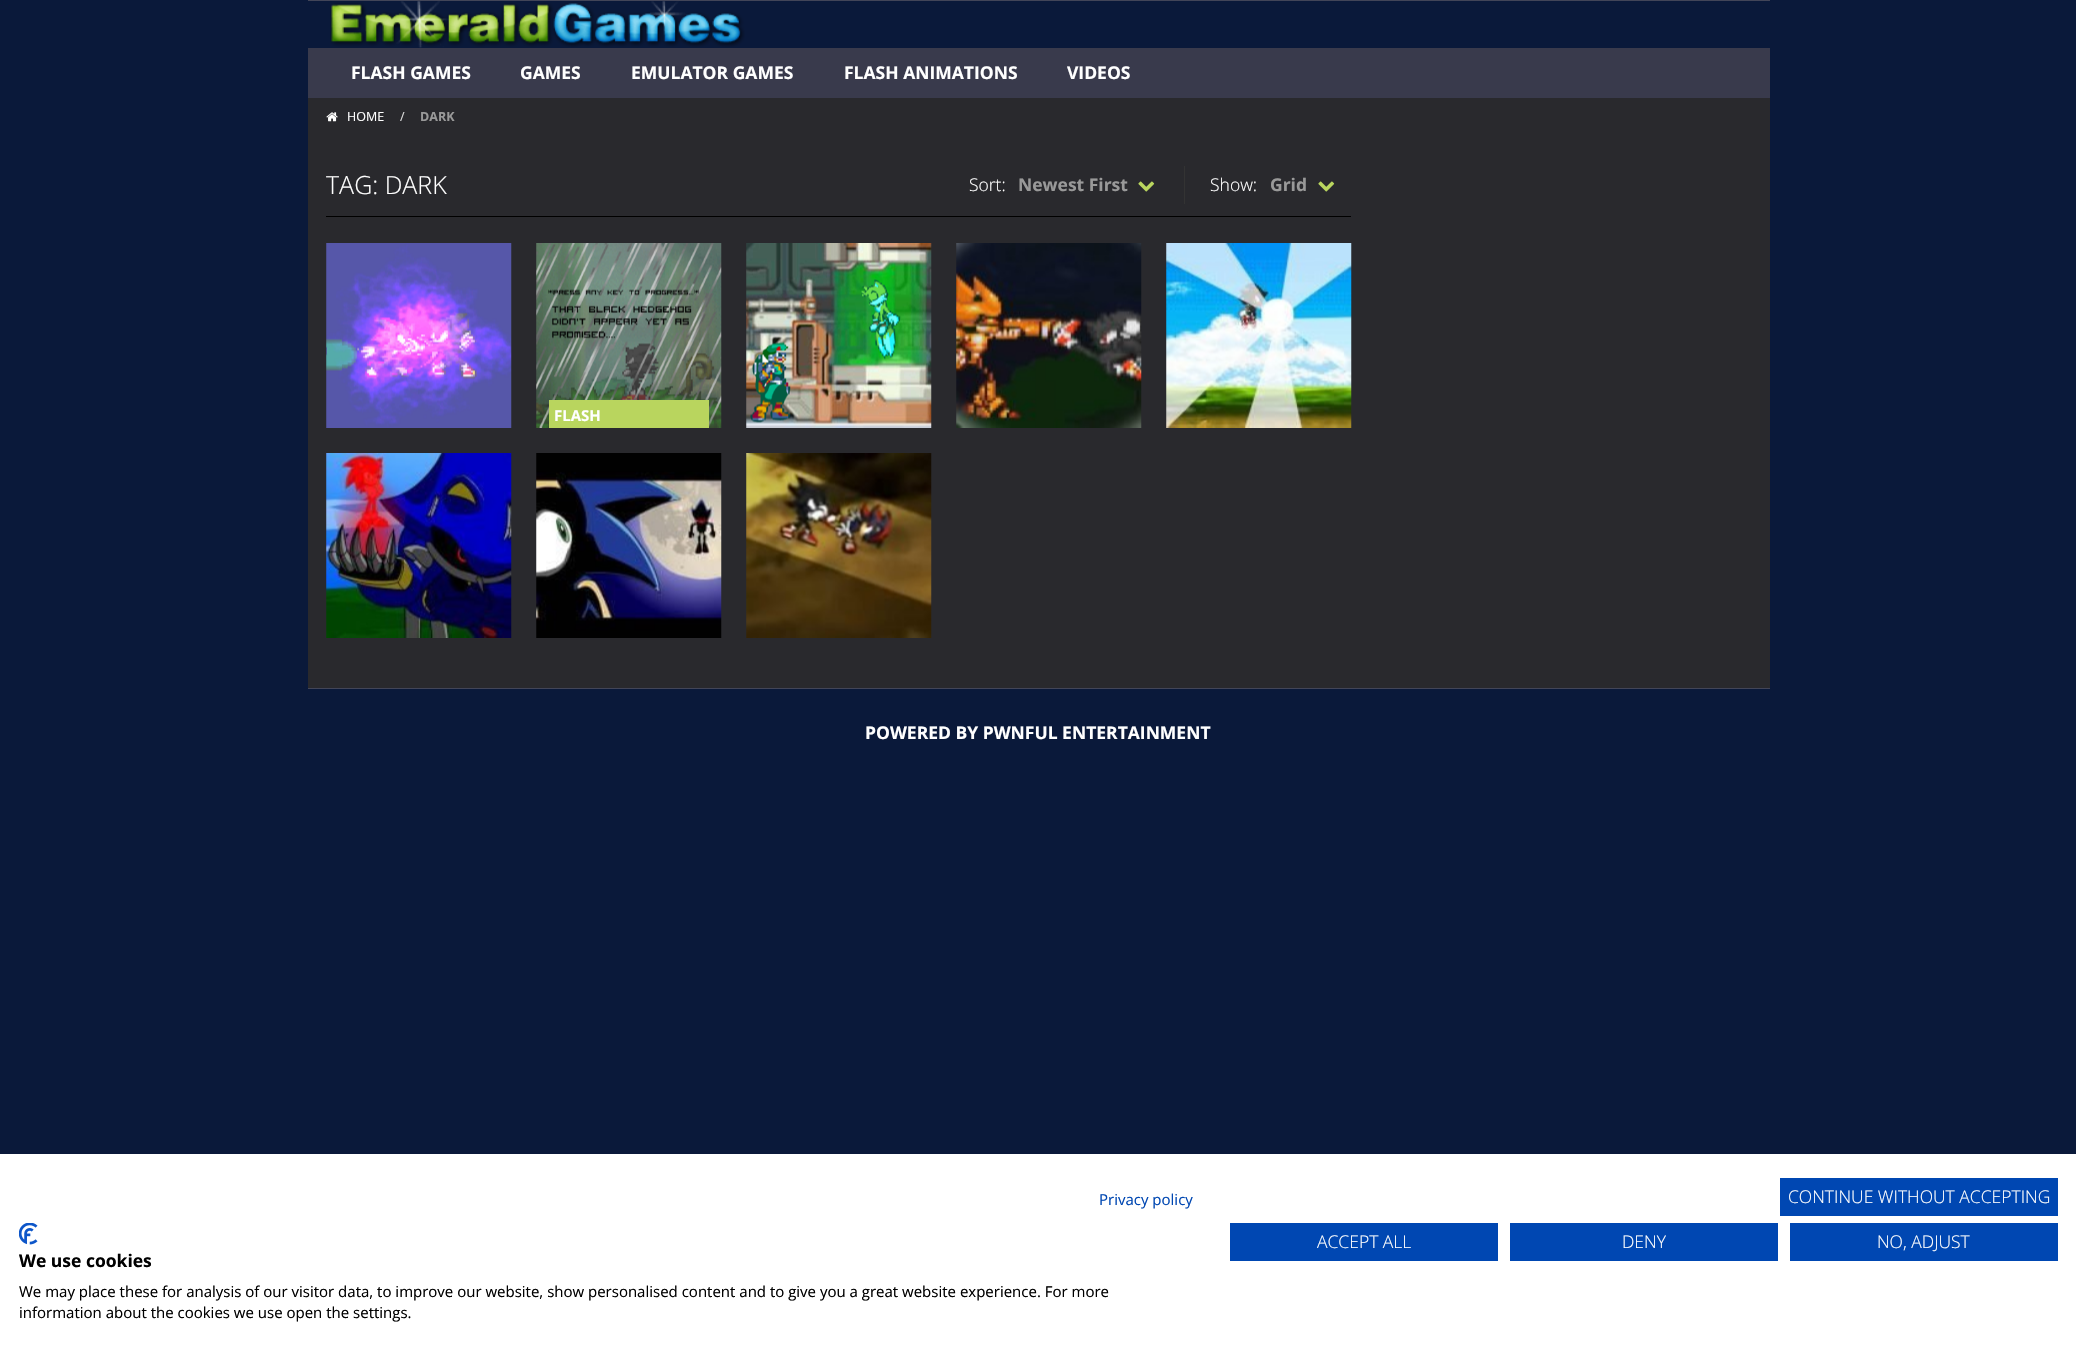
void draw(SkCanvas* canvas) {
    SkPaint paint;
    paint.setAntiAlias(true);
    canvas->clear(0xFF0A193A);
    paint.setColor(0xFF424558);
    canvas->drawRect(SkRect::MakeXYWH(308, 0, 1462, 1), paint);
    canvas->drawImageRect(SkImages::DeferredFromEncodedData(SkData::MakeFromFileName("img1.png")), SkRect::MakeXYWH(330, 1, 415, 47), SkSamplingOptions());
    paint.setColor(0xFF393A4C);
    canvas->drawRect(SkRect::MakeXYWH(308, 48, 1462, 50), paint);
    SkFont font1(fontMgr->matchFamilyStyle("Open Sans", SkFontStyle::Bold()), 17.5f);
    font1.setSubpixel(true);
    paint.setColor(0xFFFFFFFF);
    canvas->drawString("FLASH GAMES", 351, 79, font1, paint);
    canvas->drawString("GAMES", 520, 79, font1, paint);
    canvas->drawString("EMULATOR GAMES", 631, 79, font1, paint);
    canvas->drawString("FLASH ANIMATIONS", 844, 79, font1, paint);
    canvas->drawString("VIDEOS", 1067, 79, font1, paint);
    paint.setColor(0xFF29292D);
    canvas->drawRect(SkRect::MakeXYWH(308, 98, 1462, 590), paint);
    canvas->drawImageRect(SkImages::DeferredFromEncodedData(SkData::MakeFromFileName("img2.png")), SkRect::MakeXYWH(326, 112, 12, 10), SkSamplingOptions());
    SkFont font2(fontMgr->matchFamilyStyle("Open Sans", SkFontStyle::Normal()), 12.5f);
    font2.setSubpixel(true);
    paint.setColor(0xFFFFFFFF);
    canvas->drawString("HOME", 347, 121, font2, paint);
    paint.setColor(0xFFDDDDDD);
    canvas->drawString("/", 400, 121, font2, paint);
    SkFont font3(fontMgr->matchFamilyStyle("Open Sans", SkFontStyle::Bold()), 12.5f);
    font3.setSubpixel(true);
    paint.setColor(0xFF999999);
    canvas->drawString("DARK", 420, 121, font3, paint);
    paint.setColor(0xFF000000);
    canvas->drawRect(SkRect::MakeXYWH(326, 216, 1025, 1), paint);
    SkFont font4(fontMgr->matchFamilyStyle("Open Sans", SkFontStyle(300, SkFontStyle::kNormal_Width, SkFontStyle::kUpright_Slant)), 25);
    font4.setSubpixel(true);
    paint.setColor(0xFFFFFFFF);
    canvas->drawString("TAG: DARK", 326, 194, font4, paint);
    paint.setColor(0xFF333333);
    canvas->drawRect(SkRect::MakeXYWH(1184, 166, 1, 38), paint);
    SkFont font5(fontMgr->matchFamilyStyle("Open Sans", SkFontStyle(300, SkFontStyle::kNormal_Width, SkFontStyle::kUpright_Slant)), 17.5f);
    font5.setSubpixel(true);
    paint.setColor(0xFFFFFFFF);
    canvas->drawString("Sort:", 969, 191, font5, paint);
    paint.setColor(0xFF999999);
    canvas->drawString("Newest First", 1018, 191, font1, paint);
    canvas->drawImageRect(SkImages::DeferredFromEncodedData(SkData::MakeFromFileName("img3.png")), SkRect::MakeXYWH(1138, 181, 17, 11), SkSamplingOptions());
    paint.setColor(0xFFFFFFFF);
    canvas->drawString("Show:", 1210, 191, font5, paint);
    paint.setColor(0xFF999999);
    canvas->drawString("Grid", 1270, 191, font1, paint);
    canvas->drawImageRect(SkImages::DeferredFromEncodedData(SkData::MakeFromFileName("img3.png")), SkRect::MakeXYWH(1318, 181, 17, 11), SkSamplingOptions());
    canvas->drawImageRect(SkImages::DeferredFromEncodedData(SkData::MakeFromFileName("img4.png")), SkRect::MakeXYWH(326, 243, 186, 185), SkSamplingOptions());
    canvas->drawImageRect(SkImages::DeferredFromEncodedData(SkData::MakeFromFileName("img5.png")), SkRect::MakeXYWH(536, 243, 186, 185), SkSamplingOptions());
    paint.setColor(0xFFB9D55E);
    canvas->drawRect(SkRect::MakeXYWH(549, 400, 160, 28), paint);
    SkFont font6(fontMgr->matchFamilyStyle("Open Sans", SkFontStyle::Bold()), 15);
    font6.setSubpixel(true);
    paint.setColor(0xFFFFFFFF);
    canvas->drawString("FLASH", 554, 421, font6, paint);
    canvas->drawImageRect(SkImages::DeferredFromEncodedData(SkData::MakeFromFileName("img6.png")), SkRect::MakeXYWH(746, 243, 186, 185), SkSamplingOptions());
    canvas->drawImageRect(SkImages::DeferredFromEncodedData(SkData::MakeFromFileName("img7.png")), SkRect::MakeXYWH(956, 243, 186, 185), SkSamplingOptions());
    canvas->drawImageRect(SkImages::DeferredFromEncodedData(SkData::MakeFromFileName("img8.png")), SkRect::MakeXYWH(1166, 243, 186, 185), SkSamplingOptions());
    canvas->drawImageRect(SkImages::DeferredFromEncodedData(SkData::MakeFromFileName("img9.png")), SkRect::MakeXYWH(326, 453, 186, 185), SkSamplingOptions());
    canvas->drawImageRect(SkImages::DeferredFromEncodedData(SkData::MakeFromFileName("img10.png")), SkRect::MakeXYWH(536, 453, 186, 185), SkSamplingOptions());
    canvas->drawImageRect(SkImages::DeferredFromEncodedData(SkData::MakeFromFileName("img11.png")), SkRect::MakeXYWH(746, 453, 186, 185), SkSamplingOptions());
    paint.setColor(0xFF424558);
    canvas->drawRect(SkRect::MakeXYWH(308, 688, 1462, 1), paint);
    paint.setColor(0xFFFFFFFF);
    canvas->drawString("POWERED BY PWNFUL ENTERTAINMENT", 865, 739, font1, paint);
    canvas->drawRect(SkRect::MakeXYWH(0, 1154, 2076, 203), paint);
    SkFont font7(fontMgr->matchFamilyStyle("Open Sans", SkFontStyle::Normal()), 15);
    font7.setSubpixel(true);
    paint.setColor(0xFF0047B2);
    canvas->drawString("Privacy policy", 1099, 1205, font7, paint);
    canvas->drawRect(SkRect::MakeXYWH(1780, 1178, 278, 38), paint);
    paint.setColor(0xFFFFFFFF);
    canvas->drawString("CONTINUE WITHOUT ACCEPTING", 1788, 1203, font5, paint);
    paint.setColor(0xFF0047B2);
    canvas->drawRect(SkRect::MakeXYWH(1230, 1223, 268, 38), paint);
    paint.setColor(0xFFFFFFFF);
    canvas->drawString("ACCEPT ALL", 1317, 1248, font5, paint);
    paint.setColor(0xFF0047B2);
    canvas->drawRect(SkRect::MakeXYWH(1510, 1223, 268, 38), paint);
    paint.setColor(0xFFFFFFFF);
    canvas->drawString("DENY", 1622, 1248, font5, paint);
    paint.setColor(0xFF0047B2);
    canvas->drawRect(SkRect::MakeXYWH(1790, 1223, 268, 38), paint);
    paint.setColor(0xFFFFFFFF);
    canvas->drawString("NO, ADJUST", 1877, 1248, font5, paint);
    canvas->drawImageRect(SkImages::DeferredFromEncodedData(SkData::MakeFromFileName("img12.png")), SkRect::MakeXYWH(19, 1223, 19, 22), SkSamplingOptions());
    paint.setColor(0xFF000000);
    canvas->drawString("We use cookies", 19, 1267, font1, paint);
    canvas->drawString("We may place these for analysis of our visitor data, to improve our website, show personalised content and to give you a great website experience. For more", 19, 1297, font7, paint);
    canvas->drawString("information about the cookies we use open the settings.", 19, 1318, font7, paint);
}
